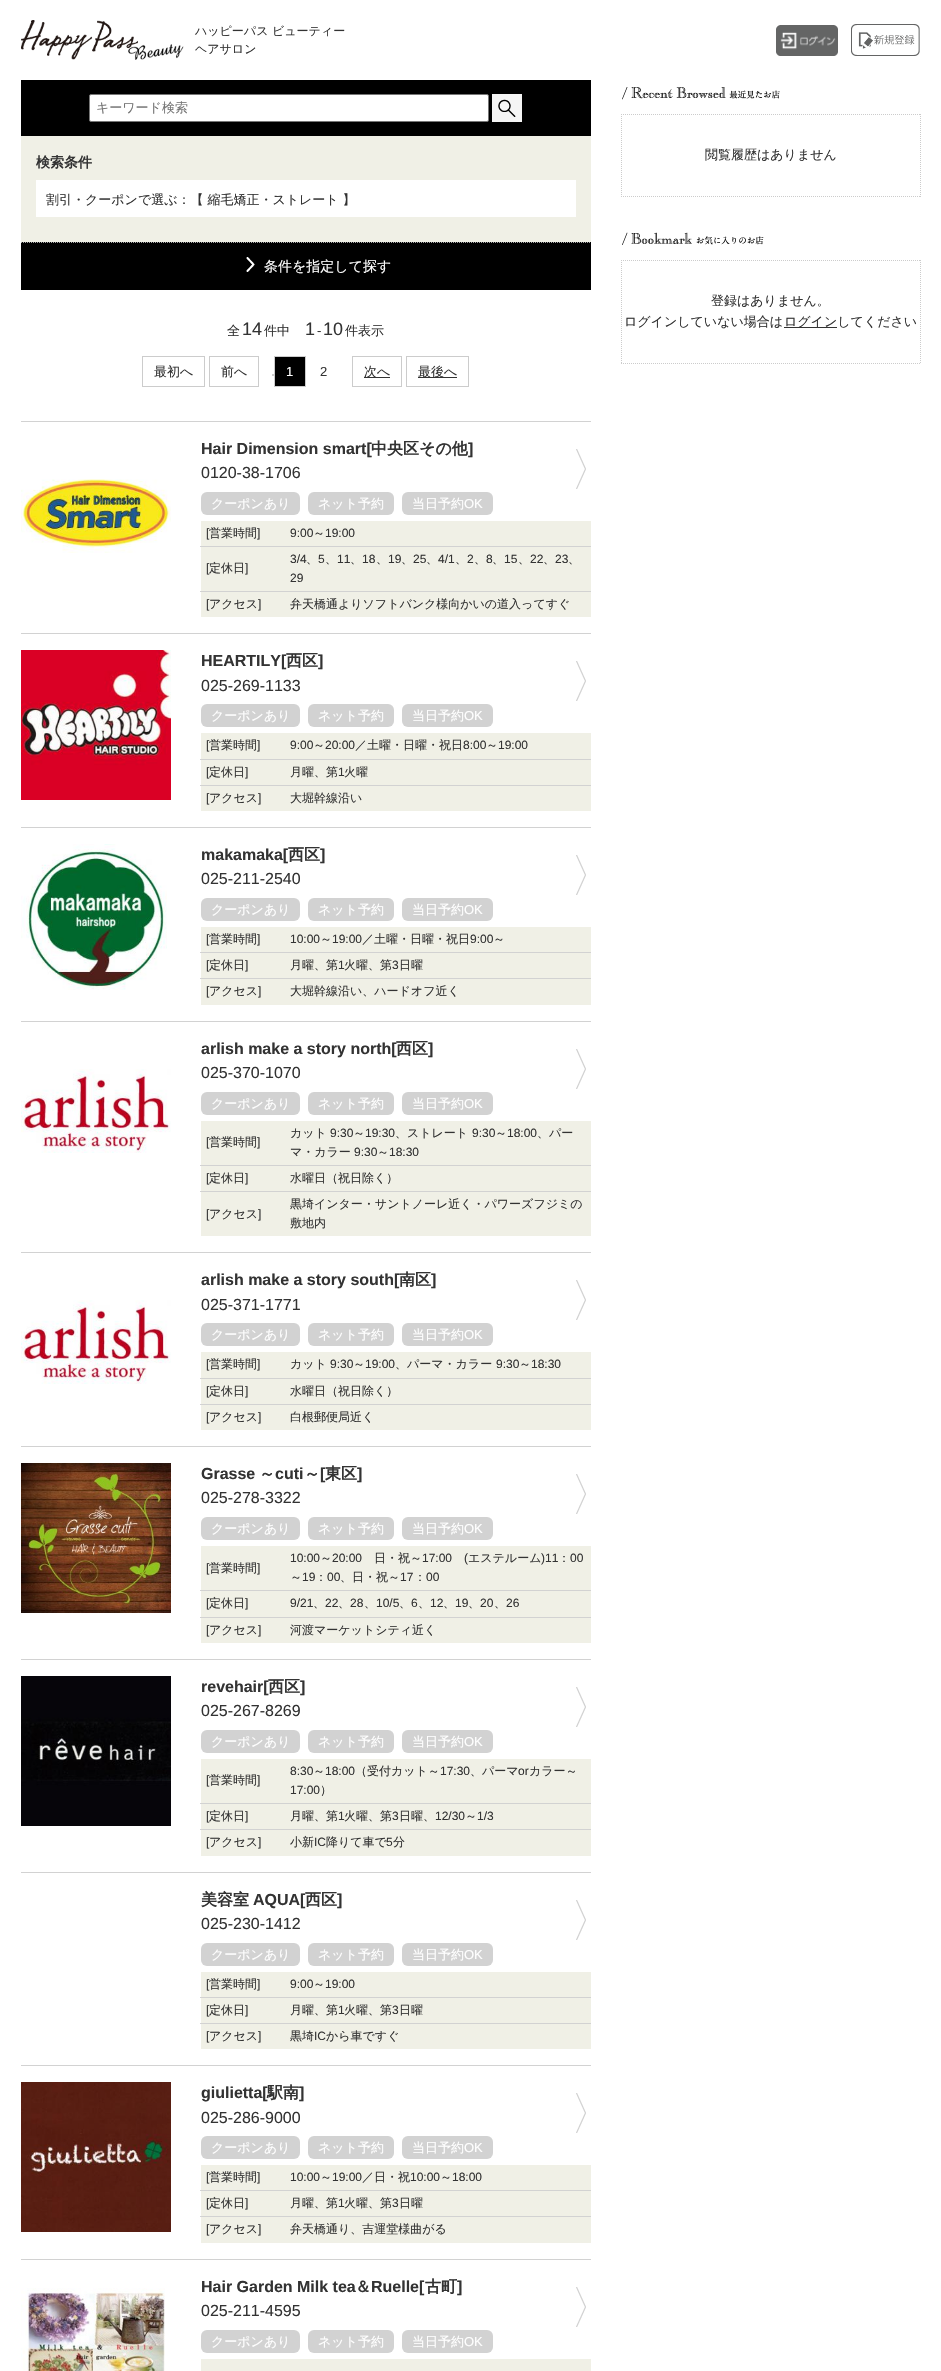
void draw(SkCanvas* canvas) {
    SkPaint paint;
    paint.setAntiAlias(true);
    canvas->clear(0xFFFFFFFF);
    canvas->drawImageRect(SkImages::DeferredFromEncodedData(SkData::MakeFromFileName("img1.png")), SkRect::MakeXYWH(21, 20, 163, 40), SkSamplingOptions());
    SkFont font1(fontMgr->matchFamilyStyle("WenQuanYi Zen Hei", SkFontStyle(500, SkFontStyle::kNormal_Width, SkFontStyle::kUpright_Slant)), 12);
    font1.setSubpixel(true);
    paint.setColor(0xFF333333);
    canvas->drawString("ハッピーパス ビューティー", 195, 35, font1, paint);
    canvas->drawString("ヘアサロン", 195, 53, font1, paint);
    canvas->drawImageRect(SkImages::DeferredFromEncodedData(SkData::MakeFromFileName("img2.png")), SkRect::MakeXYWH(776, 25, 62, 31), SkSamplingOptions());
    canvas->drawImageRect(SkImages::DeferredFromEncodedData(SkData::MakeFromFileName("img3.png")), SkRect::MakeXYWH(851, 24, 69, 32), SkSamplingOptions());
    paint.setColor(0xFF000000);
    canvas->drawRect(SkRect::MakeXYWH(21, 80, 570, 56), paint);
    paint.setColor(0xFFFFFFFF);
    canvas->drawRoundRect(SkRect::MakeXYWH(89.5f, 94.5f, 399, 27), 1.5f, 1.5f, paint);
    paint.setStyle(SkPaint::kStroke_Style);
    paint.setStrokeWidth(1);
    paint.setColor(0xFF767676);
    canvas->drawRoundRect(SkRect::MakeXYWH(89.5f, 94.5f, 399, 27), 1.5f, 1.5f, paint);
    SkFont font2(fontMgr->matchFamilyStyle("WenQuanYi Zen Hei", SkFontStyle(500, SkFontStyle::kNormal_Width, SkFontStyle::kUpright_Slant)), 13);
    font2.setSubpixel(true);
    paint.setStyle(SkPaint::kFill_Style);
    paint.setColor(0xFF757575);
    canvas->drawString("キーワード検索", 96, 112, font2, paint);
    canvas->drawImageRect(SkImages::DeferredFromEncodedData(SkData::MakeFromFileName("img4.png")), SkRect::MakeXYWH(492, 94, 30, 28), SkSamplingOptions());
    paint.setColor(0xFFF0F0E6);
    canvas->drawRect(SkRect::MakeXYWH(21, 136, 570, 106), paint);
    SkFont font3(fontMgr->matchFamilyStyle("WenQuanYi Zen Hei", SkFontStyle::Bold()), 14);
    font3.setSubpixel(true);
    paint.setColor(0xFF333333);
    canvas->drawString("検索条件", 36, 167, font3, paint);
    paint.setColor(0xFFFFFFFF);
    canvas->drawRect(SkRect::MakeXYWH(36, 180, 540, 37), paint);
    paint.setColor(0xFF333333);
    canvas->drawString("割引・クーポンで選ぶ：【 縮毛矯正・ストレート 】", 46, 204, font2, paint);
    paint.setColor(0xFF000000);
    canvas->drawRect(SkRect::MakeXYWH(21, 242, 570, 48), paint);
    paint.setStyle(SkPaint::kStroke_Style);
    paint.setColor(0xFFAAAAAA);
    paint.setPathEffect(SkDashPathEffect::Make({{1, 1}}, 0));
    canvas->drawPath(SkPathBuilder().moveTo(21, 242.5f).lineTo(591, 242.5f).detach(), paint);
    paint.setPathEffect(nullptr);
    canvas->drawImageRect(SkImages::DeferredFromEncodedData(SkData::MakeFromFileName("img5.png")), SkRect::MakeXYWH(246, 257, 9, 15), SkSamplingOptions());
    SkFont font4(fontMgr->matchFamilyStyle("WenQuanYi Zen Hei", SkFontStyle(500, SkFontStyle::kNormal_Width, SkFontStyle::kUpright_Slant)), 14);
    font4.setSubpixel(true);
    paint.setStyle(SkPaint::kFill_Style);
    paint.setColor(0xFFFFFFFF);
    canvas->drawString("条件を指定して探す", 264, 271, font4, paint);
    paint.setColor(0xFF333333);
    canvas->drawString("全", 227, 335, font2, paint);
    SkFont font5(fontMgr->matchFamilyStyle("Liberation Sans", SkFontStyle::Normal()), 18);
    font5.setSubpixel(true);
    canvas->drawString("14", 242, 335, font5, paint);
    canvas->drawString("件中", 264, 335, font2, paint);
    canvas->drawString("1", 305, 335, font5, paint);
    SkFont font6(fontMgr->matchFamilyStyle("Liberation Sans", SkFontStyle::Normal()), 13);
    font6.setSubpixel(true);
    canvas->drawString("-", 317, 335, font6, paint);
    canvas->drawString("10", 323, 335, font5, paint);
    canvas->drawString("件表示", 345, 335, font2, paint);
    paint.setStyle(SkPaint::kStroke_Style);
    paint.setColor(0xFFCCCCCC);
    canvas->drawRect(SkRect::MakeXYWH(142.5f, 356.5f, 62, 30), paint);
    paint.setStyle(SkPaint::kFill_Style);
    paint.setColor(0xFF333333);
    canvas->drawString("最初へ", 154, 376, font2, paint);
    paint.setStyle(SkPaint::kStroke_Style);
    paint.setColor(0xFFCCCCCC);
    canvas->drawRect(SkRect::MakeXYWH(209.5f, 356.5f, 49, 30), paint);
    paint.setStyle(SkPaint::kFill_Style);
    paint.setColor(0xFF333333);
    canvas->drawString("前へ", 221, 376, font2, paint);
    paint.setColor(0xFFCCCCCC);
    canvas->drawRect(SkRect::MakeXYWH(272, 374, 2, 2), paint);
    paint.setStyle(SkPaint::kStroke_Style);
    canvas->drawRect(SkRect::MakeXYWH(274.5f, 356.5f, 31, 30), paint);
    paint.setStyle(SkPaint::kFill_Style);
    paint.setColor(0xFF000000);
    canvas->drawRect(SkRect::MakeXYWH(275, 357, 30, 29), paint);
    paint.setColor(0xFFFFFFFF);
    canvas->drawString("1", 286, 376, font6, paint);
    paint.setColor(0xFF333333);
    canvas->drawString("2", 320, 376, font6, paint);
    paint.setStyle(SkPaint::kStroke_Style);
    paint.setColor(0xFFCCCCCC);
    canvas->drawRect(SkRect::MakeXYWH(352.5f, 356.5f, 49, 30), paint);
    paint.setStyle(SkPaint::kFill_Style);
    paint.setColor(0xFF333333);
    canvas->drawRect(SkRect::MakeXYWH(364, 377, 26, 1), paint);
    canvas->drawString("次へ", 364, 376, font2, paint);
    paint.setStyle(SkPaint::kStroke_Style);
    paint.setColor(0xFFCCCCCC);
    canvas->drawRect(SkRect::MakeXYWH(406.5f, 356.5f, 62, 30), paint);
    paint.setStyle(SkPaint::kFill_Style);
    paint.setColor(0xFF333333);
    canvas->drawRect(SkRect::MakeXYWH(418, 377, 39, 1), paint);
    canvas->drawString("最後へ", 418, 376, font2, paint);
    paint.setColor(0xFFD2D2D2);
    canvas->drawRect(SkRect::MakeXYWH(21, 421, 570, 1), paint);
    canvas->drawRect(SkRect::MakeXYWH(21, 633, 570, 1), paint);
    canvas->drawImageRect(SkImages::DeferredFromEncodedData(SkData::MakeFromFileName("img6.png")), SkRect::MakeXYWH(21, 479, 150, 74), SkSamplingOptions());
    canvas->drawImageRect(SkImages::DeferredFromEncodedData(SkData::MakeFromFileName("img7.png")), SkRect::MakeXYWH(576, 449, 10, 40), SkSamplingOptions());
    SkFont font7(fontMgr->matchFamilyStyle("Liberation Sans", SkFontStyle::Bold()), 16);
    font7.setSubpixel(true);
    paint.setColor(0xFF333333);
    canvas->drawString("Hair Dimension smart[", 201, 454, font7, paint);
    SkFont font8(fontMgr->matchFamilyStyle("WenQuanYi Zen Hei", SkFontStyle::Bold()), 16);
    font8.setSubpixel(true);
    canvas->drawString("中央区その他", 371, 454, font8, paint);
    canvas->drawString("]", 468, 454, font7, paint);
    SkFont font9(fontMgr->matchFamilyStyle("Liberation Sans", SkFontStyle::Normal()), 16);
    font9.setSubpixel(true);
    canvas->drawString("0120-38-1706", 201, 478, font9, paint);
    paint.setColor(0xFFD2D2D2);
    canvas->drawRoundRect(SkRect::MakeXYWH(201, 492, 99, 23), 6, 6, paint);
    paint.setColor(0xFFFFFFFF);
    canvas->drawString("クーポンあり", 211, 508, font2, paint);
    paint.setColor(0xFFD2D2D2);
    canvas->drawRoundRect(SkRect::MakeXYWH(308, 492, 86, 23), 6, 6, paint);
    paint.setColor(0xFFFFFFFF);
    canvas->drawString("ネット予約", 318, 508, font2, paint);
    paint.setColor(0xFFD2D2D2);
    canvas->drawRoundRect(SkRect::MakeXYWH(402, 492, 91, 23), 6, 6, paint);
    paint.setColor(0xFFFFFFFF);
    canvas->drawString("当日予約", 412, 508, font2, paint);
    canvas->drawString("OK", 464, 508, font6, paint);
    paint.setColor(0xFFF0F0E6);
    canvas->drawRect(SkRect::MakeXYWH(201, 521, 390, 96), paint);
    SkFont font10(fontMgr->matchFamilyStyle("Liberation Sans", SkFontStyle::Normal()), 12);
    font10.setSubpixel(true);
    paint.setColor(0xFF333333);
    canvas->drawString("[", 206, 537, font10, paint);
    canvas->drawString("営業時間", 209, 537, font1, paint);
    canvas->drawString("]", 257, 537, font10, paint);
    paint.setColor(0xFFD2D2D2);
    canvas->drawRect(SkRect::MakeXYWH(200, 546, 391, 1), paint);
    paint.setColor(0xFF333333);
    canvas->drawString("9:00", 290, 537, font10, paint);
    canvas->drawString("～", 313, 537, font1, paint);
    canvas->drawString("19:00", 325, 537, font10, paint);
    canvas->drawString("[", 206, 572, font10, paint);
    canvas->drawString("定休日", 209, 572, font1, paint);
    canvas->drawString("]", 245, 572, font10, paint);
    paint.setColor(0xFFD2D2D2);
    canvas->drawRect(SkRect::MakeXYWH(200, 591, 391, 1), paint);
    paint.setColor(0xFF333333);
    canvas->drawString("3/4", 290, 563, font10, paint);
    canvas->drawString("、", 306, 563, font1, paint);
    canvas->drawString("5", 318, 563, font10, paint);
    canvas->drawString("、", 325, 563, font1, paint);
    canvas->drawString("11", 337, 563, font10, paint);
    canvas->drawString("、", 350, 563, font1, paint);
    canvas->drawString("18", 362, 563, font10, paint);
    canvas->drawString("、", 376, 563, font1, paint);
    canvas->drawString("19", 388, 563, font10, paint);
    canvas->drawString("、", 401, 563, font1, paint);
    canvas->drawString("25", 413, 563, font10, paint);
    canvas->drawString("、", 426, 563, font1, paint);
    canvas->drawString("4/1", 438, 563, font10, paint);
    canvas->drawString("、", 455, 563, font1, paint);
    canvas->drawString("2", 467, 563, font10, paint);
    canvas->drawString("、", 474, 563, font1, paint);
    canvas->drawString("8", 486, 563, font10, paint);
    canvas->drawString("、", 492, 563, font1, paint);
    canvas->drawString("15", 504, 563, font10, paint);
    canvas->drawString("、", 518, 563, font1, paint);
    canvas->drawString("22", 530, 563, font10, paint);
    canvas->drawString("、", 543, 563, font1, paint);
    canvas->drawString("23", 555, 563, font10, paint);
    canvas->drawString("、", 568, 563, font1, paint);
    canvas->drawString("29", 290, 582, font10, paint);
    canvas->drawString("[", 206, 608, font10, paint);
    canvas->drawString("アクセス", 209, 608, font1, paint);
    canvas->drawString("]", 258, 608, font10, paint);
    canvas->drawString("弁天橋通よりソフトバンク様向かいの道入ってすぐ", 290, 608, font1, paint);
    paint.setColor(0xFFD2D2D2);
    canvas->drawRect(SkRect::MakeXYWH(21, 827, 570, 1), paint);
    canvas->drawImageRect(SkImages::DeferredFromEncodedData(SkData::MakeFromFileName("img8.png")), SkRect::MakeXYWH(21, 650, 150, 150), SkSamplingOptions());
    canvas->drawImageRect(SkImages::DeferredFromEncodedData(SkData::MakeFromFileName("img7.png")), SkRect::MakeXYWH(576, 661, 10, 40), SkSamplingOptions());
    paint.setColor(0xFF333333);
    canvas->drawString("HEARTILY[", 201, 666, font7, paint);
    canvas->drawString("西区", 286, 666, font8, paint);
    canvas->drawString("]", 318, 666, font7, paint);
    canvas->drawString("025-269-1133", 201, 691, font9, paint);
    paint.setColor(0xFFD2D2D2);
    canvas->drawRoundRect(SkRect::MakeXYWH(201, 704, 99, 23), 6, 6, paint);
    paint.setColor(0xFFFFFFFF);
    canvas->drawString("クーポンあり", 211, 720, font2, paint);
    paint.setColor(0xFFD2D2D2);
    canvas->drawRoundRect(SkRect::MakeXYWH(308, 704, 86, 23), 6, 6, paint);
    paint.setColor(0xFFFFFFFF);
    canvas->drawString("ネット予約", 318, 720, font2, paint);
    paint.setColor(0xFFD2D2D2);
    canvas->drawRoundRect(SkRect::MakeXYWH(402, 704, 91, 23), 6, 6, paint);
    paint.setColor(0xFFFFFFFF);
    canvas->drawString("当日予約", 412, 720, font2, paint);
    canvas->drawString("OK", 464, 720, font6, paint);
    paint.setColor(0xFFF0F0E6);
    canvas->drawRect(SkRect::MakeXYWH(201, 733, 390, 78), paint);
    paint.setColor(0xFF333333);
    canvas->drawString("[", 206, 749, font10, paint);
    canvas->drawString("営業時間", 209, 749, font1, paint);
    canvas->drawString("]", 257, 749, font10, paint);
    paint.setColor(0xFFD2D2D2);
    canvas->drawRect(SkRect::MakeXYWH(200, 759, 391, 1), paint);
    paint.setColor(0xFF333333);
    canvas->drawString("9:00", 290, 749, font10, paint);
    canvas->drawString("～", 313, 749, font1, paint);
    canvas->drawString("20:00", 325, 749, font10, paint);
    canvas->drawString("／土曜・日曜・祝日", 355, 749, font1, paint);
    canvas->drawString("8:00", 463, 749, font10, paint);
    canvas->drawString("～", 486, 749, font1, paint);
    canvas->drawString("19:00", 498, 749, font10, paint);
    canvas->drawString("[", 206, 776, font10, paint);
    canvas->drawString("定休日", 209, 776, font1, paint);
    canvas->drawString("]", 245, 776, font10, paint);
    paint.setColor(0xFFD2D2D2);
    canvas->drawRect(SkRect::MakeXYWH(200, 785, 391, 1), paint);
    paint.setColor(0xFF333333);
    canvas->drawString("月曜、第", 290, 776, font1, paint);
    canvas->drawString("1", 338, 776, font10, paint);
    canvas->drawString("火曜", 344, 776, font1, paint);
    canvas->drawString("[", 206, 802, font10, paint);
    canvas->drawString("アクセス", 209, 802, font1, paint);
    canvas->drawString("]", 258, 802, font10, paint);
    canvas->drawString("大堀幹線沿い", 290, 802, font1, paint);
    paint.setColor(0xFFD2D2D2);
    canvas->drawRect(SkRect::MakeXYWH(21, 1021, 570, 1), paint);
    canvas->drawImageRect(SkImages::DeferredFromEncodedData(SkData::MakeFromFileName("img9.png")), SkRect::MakeXYWH(21, 844, 146, 146), SkSamplingOptions());
    canvas->drawImageRect(SkImages::DeferredFromEncodedData(SkData::MakeFromFileName("img7.png")), SkRect::MakeXYWH(576, 855, 10, 40), SkSamplingOptions());
    paint.setColor(0xFF333333);
    canvas->drawString("makamaka[", 201, 860, font7, paint);
    canvas->drawString("西区", 288, 860, font8, paint);
    canvas->drawString("]", 320, 860, font7, paint);
    canvas->drawString("025-211-2540", 201, 884, font9, paint);
    paint.setColor(0xFFD2D2D2);
    canvas->drawRoundRect(SkRect::MakeXYWH(201, 898, 99, 23), 6, 6, paint);
    paint.setColor(0xFFFFFFFF);
    canvas->drawString("クーポンあり", 211, 914, font2, paint);
    paint.setColor(0xFFD2D2D2);
    canvas->drawRoundRect(SkRect::MakeXYWH(308, 898, 86, 23), 6, 6, paint);
    paint.setColor(0xFFFFFFFF);
    canvas->drawString("ネット予約", 318, 914, font2, paint);
    paint.setColor(0xFFD2D2D2);
    canvas->drawRoundRect(SkRect::MakeXYWH(402, 898, 91, 23), 6, 6, paint);
    paint.setColor(0xFFFFFFFF);
    canvas->drawString("当日予約", 412, 914, font2, paint);
    canvas->drawString("OK", 464, 914, font6, paint);
    paint.setColor(0xFFF0F0E6);
    canvas->drawRect(SkRect::MakeXYWH(201, 927, 390, 78), paint);
    paint.setColor(0xFF333333);
    canvas->drawString("[", 206, 943, font10, paint);
    canvas->drawString("営業時間", 209, 943, font1, paint);
    canvas->drawString("]", 257, 943, font10, paint);
    paint.setColor(0xFFD2D2D2);
    canvas->drawRect(SkRect::MakeXYWH(200, 952, 391, 1), paint);
    paint.setColor(0xFF333333);
    canvas->drawString("10:00", 290, 943, font10, paint);
    canvas->drawString("～", 320, 943, font1, paint);
    canvas->drawString("19:00", 332, 943, font10, paint);
    canvas->drawString("／土曜・日曜・祝日", 362, 943, font1, paint);
    canvas->drawString("9:00", 470, 943, font10, paint);
    canvas->drawString("～", 493, 943, font1, paint);
    canvas->drawString("[", 206, 969, font10, paint);
    canvas->drawString("定休日", 209, 969, font1, paint);
    canvas->drawString("]", 245, 969, font10, paint);
    paint.setColor(0xFFD2D2D2);
    canvas->drawRect(SkRect::MakeXYWH(200, 978, 391, 1), paint);
    paint.setColor(0xFF333333);
    canvas->drawString("月曜、第", 290, 969, font1, paint);
    canvas->drawString("1", 338, 969, font10, paint);
    canvas->drawString("火曜、第", 344, 969, font1, paint);
    canvas->drawString("3", 392, 969, font10, paint);
    canvas->drawString("日曜", 399, 969, font1, paint);
    canvas->drawString("[", 206, 995, font10, paint);
    canvas->drawString("アクセス", 209, 995, font1, paint);
    canvas->drawString("]", 258, 995, font10, paint);
    canvas->drawString("大堀幹線沿い、ハードオフ近く", 290, 995, font1, paint);
    paint.setColor(0xFFD2D2D2);
    canvas->drawRect(SkRect::MakeXYWH(21, 1252, 570, 1), paint);
    canvas->drawImageRect(SkImages::DeferredFromEncodedData(SkData::MakeFromFileName("img10.png")), SkRect::MakeXYWH(21, 1069, 150, 84), SkSamplingOptions());
    canvas->drawImageRect(SkImages::DeferredFromEncodedData(SkData::MakeFromFileName("img7.png")), SkRect::MakeXYWH(576, 1049, 10, 40), SkSamplingOptions());
    paint.setColor(0xFF333333);
    canvas->drawString("arlish make a story north[", 201, 1054, font7, paint);
    canvas->drawString("西区", 396, 1054, font8, paint);
    canvas->drawString("]", 428, 1054, font7, paint);
    canvas->drawString("025-370-1070", 201, 1078, font9, paint);
    paint.setColor(0xFFD2D2D2);
    canvas->drawRoundRect(SkRect::MakeXYWH(201, 1092, 99, 23), 6, 6, paint);
    paint.setColor(0xFFFFFFFF);
    canvas->drawString("クーポンあり", 211, 1108, font2, paint);
    paint.setColor(0xFFD2D2D2);
    canvas->drawRoundRect(SkRect::MakeXYWH(308, 1092, 86, 23), 6, 6, paint);
    paint.setColor(0xFFFFFFFF);
    canvas->drawString("ネット予約", 318, 1108, font2, paint);
    paint.setColor(0xFFD2D2D2);
    canvas->drawRoundRect(SkRect::MakeXYWH(402, 1092, 91, 23), 6, 6, paint);
    paint.setColor(0xFFFFFFFF);
    canvas->drawString("当日予約", 412, 1108, font2, paint);
    canvas->drawString("OK", 464, 1108, font6, paint);
    paint.setColor(0xFFF0F0E6);
    canvas->drawRect(SkRect::MakeXYWH(201, 1121, 390, 115), paint);
    paint.setColor(0xFF333333);
    canvas->drawString("[", 206, 1146, font10, paint);
    canvas->drawString("営業時間", 209, 1146, font1, paint);
    canvas->drawString("]", 257, 1146, font10, paint);
    paint.setColor(0xFFD2D2D2);
    canvas->drawRect(SkRect::MakeXYWH(200, 1165, 391, 1), paint);
    paint.setColor(0xFF333333);
    canvas->drawString("カット", 290, 1137, font1, paint);
    canvas->drawString("9:30", 330, 1137, font10, paint);
    canvas->drawString("～", 353, 1137, font1, paint);
    canvas->drawString("19:30", 365, 1137, font10, paint);
    canvas->drawString("、ストレート", 395, 1137, font1, paint);
    canvas->drawString("9:30", 472, 1137, font10, paint);
    canvas->drawString("～", 495, 1137, font1, paint);
    canvas->drawString("18:00", 507, 1137, font10, paint);
    canvas->drawString("、パー", 537, 1137, font1, paint);
    canvas->drawString("マ・カラー", 290, 1156, font1, paint);
    canvas->drawString("9:30", 354, 1156, font10, paint);
    canvas->drawString("～", 377, 1156, font1, paint);
    canvas->drawString("18:30", 389, 1156, font10, paint);
    canvas->drawString("[", 206, 1182, font10, paint);
    canvas->drawString("定休日", 209, 1182, font1, paint);
    canvas->drawString("]", 245, 1182, font10, paint);
    paint.setColor(0xFFD2D2D2);
    canvas->drawRect(SkRect::MakeXYWH(200, 1191, 391, 1), paint);
    paint.setColor(0xFF333333);
    canvas->drawString("水曜日（祝日除く）", 290, 1182, font1, paint);
    canvas->drawString("[", 206, 1218, font10, paint);
    canvas->drawString("アクセス", 209, 1218, font1, paint);
    canvas->drawString("]", 258, 1218, font10, paint);
    canvas->drawString("黒埼インター・サントノーレ近く・パワーズフジミの", 290, 1208, font1, paint);
    canvas->drawString("敷地内", 290, 1227, font1, paint);
    paint.setColor(0xFFD2D2D2);
    canvas->drawRect(SkRect::MakeXYWH(21, 1446, 570, 1), paint);
    canvas->drawImageRect(SkImages::DeferredFromEncodedData(SkData::MakeFromFileName("img11.png")), SkRect::MakeXYWH(21, 1300, 150, 84), SkSamplingOptions());
    canvas->drawImageRect(SkImages::DeferredFromEncodedData(SkData::MakeFromFileName("img7.png")), SkRect::MakeXYWH(576, 1280, 10, 40), SkSamplingOptions());
    paint.setColor(0xFF333333);
    canvas->drawString("arlish make a story south[", 201, 1285, font7, paint);
    canvas->drawString("南区", 399, 1285, font8, paint);
    canvas->drawString("]", 431, 1285, font7, paint);
    canvas->drawString("025-371-1771", 201, 1310, font9, paint);
    paint.setColor(0xFFD2D2D2);
    canvas->drawRoundRect(SkRect::MakeXYWH(201, 1323, 99, 23), 6, 6, paint);
    paint.setColor(0xFFFFFFFF);
    canvas->drawString("クーポンあり", 211, 1339, font2, paint);
    paint.setColor(0xFFD2D2D2);
    canvas->drawRoundRect(SkRect::MakeXYWH(308, 1323, 86, 23), 6, 6, paint);
    paint.setColor(0xFFFFFFFF);
    canvas->drawString("ネット予約", 318, 1339, font2, paint);
    paint.setColor(0xFFD2D2D2);
    canvas->drawRoundRect(SkRect::MakeXYWH(402, 1323, 91, 23), 6, 6, paint);
    paint.setColor(0xFFFFFFFF);
    canvas->drawString("当日予約", 412, 1339, font2, paint);
    canvas->drawString("OK", 464, 1339, font6, paint);
    paint.setColor(0xFFF0F0E6);
    canvas->drawRect(SkRect::MakeXYWH(201, 1352, 390, 78), paint);
    paint.setColor(0xFF333333);
    canvas->drawString("[", 206, 1368, font10, paint);
    canvas->drawString("営業時間", 209, 1368, font1, paint);
    canvas->drawString("]", 257, 1368, font10, paint);
    paint.setColor(0xFFD2D2D2);
    canvas->drawRect(SkRect::MakeXYWH(200, 1378, 391, 1), paint);
    paint.setColor(0xFF333333);
    canvas->drawString("カット", 290, 1368, font1, paint);
    canvas->drawString("9:30", 330, 1368, font10, paint);
    canvas->drawString("～", 353, 1368, font1, paint);
    canvas->drawString("19:00", 365, 1368, font10, paint);
    canvas->drawString("、パーマ・カラー", 395, 1368, font1, paint);
    canvas->drawString("9:30", 496, 1368, font10, paint);
    canvas->drawString("～", 519, 1368, font1, paint);
    canvas->drawString("18:30", 531, 1368, font10, paint);
    canvas->drawString("[", 206, 1395, font10, paint);
    canvas->drawString("定休日", 209, 1395, font1, paint);
    canvas->drawString("]", 245, 1395, font10, paint);
    paint.setColor(0xFFD2D2D2);
    canvas->drawRect(SkRect::MakeXYWH(200, 1404, 391, 1), paint);
    paint.setColor(0xFF333333);
    canvas->drawString("水曜日（祝日除く）", 290, 1395, font1, paint);
    canvas->drawString("[", 206, 1421, font10, paint);
    canvas->drawString("アクセス", 209, 1421, font1, paint);
    canvas->drawString("]", 258, 1421, font10, paint);
    canvas->drawString("白根郵便局近く", 290, 1421, font1, paint);
    paint.setColor(0xFFD2D2D2);
    canvas->drawRect(SkRect::MakeXYWH(21, 1659, 570, 1), paint);
    canvas->drawImageRect(SkImages::DeferredFromEncodedData(SkData::MakeFromFileName("img12.png")), SkRect::MakeXYWH(21, 1463, 150, 150), SkSamplingOptions());
    canvas->drawImageRect(SkImages::DeferredFromEncodedData(SkData::MakeFromFileName("img7.png")), SkRect::MakeXYWH(576, 1474, 10, 40), SkSamplingOptions());
    paint.setColor(0xFF333333);
    canvas->drawString("Grasse", 201, 1479, font7, paint);
    canvas->drawString("～", 259, 1479, font8, paint);
    canvas->drawString("cuti", 275, 1479, font7, paint);
    canvas->drawString("～", 304, 1479, font8, paint);
    canvas->drawString("[", 320, 1479, font7, paint);
    canvas->drawString("東区", 325, 1479, font8, paint);
    canvas->drawString("]", 357, 1479, font7, paint);
    canvas->drawString("025-278-3322", 201, 1503, font9, paint);
    paint.setColor(0xFFD2D2D2);
    canvas->drawRoundRect(SkRect::MakeXYWH(201, 1517, 99, 23), 6, 6, paint);
    paint.setColor(0xFFFFFFFF);
    canvas->drawString("クーポンあり", 211, 1533, font2, paint);
    paint.setColor(0xFFD2D2D2);
    canvas->drawRoundRect(SkRect::MakeXYWH(308, 1517, 86, 23), 6, 6, paint);
    paint.setColor(0xFFFFFFFF);
    canvas->drawString("ネット予約", 318, 1533, font2, paint);
    paint.setColor(0xFFD2D2D2);
    canvas->drawRoundRect(SkRect::MakeXYWH(402, 1517, 91, 23), 6, 6, paint);
    paint.setColor(0xFFFFFFFF);
    canvas->drawString("当日予約", 412, 1533, font2, paint);
    canvas->drawString("OK", 464, 1533, font6, paint);
    paint.setColor(0xFFF0F0E6);
    canvas->drawRect(SkRect::MakeXYWH(201, 1546, 390, 97), paint);
    paint.setColor(0xFF333333);
    canvas->drawString("[", 206, 1572, font10, paint);
    canvas->drawString("営業時間", 209, 1572, font1, paint);
    canvas->drawString("]", 257, 1572, font10, paint);
    paint.setColor(0xFFD2D2D2);
    canvas->drawRect(SkRect::MakeXYWH(200, 1590, 391, 1), paint);
    paint.setColor(0xFF333333);
    canvas->drawString("10:00", 290, 1562, font10, paint);
    canvas->drawString("～", 320, 1562, font1, paint);
    canvas->drawString("20:00", 332, 1562, font10, paint);
    canvas->drawString("日・祝～", 374, 1562, font1, paint);
    canvas->drawString("17:00", 422, 1562, font10, paint);
    canvas->drawString("(", 464, 1562, font10, paint);
    canvas->drawString("エステルーム", 468, 1562, font1, paint);
    canvas->drawString(")11", 541, 1562, font10, paint);
    canvas->drawString("：", 558, 1562, font1, paint);
    canvas->drawString("00", 570, 1562, font10, paint);
    canvas->drawString("～", 290, 1581, font1, paint);
    canvas->drawString("19", 302, 1581, font10, paint);
    canvas->drawString("：", 315, 1581, font1, paint);
    canvas->drawString("00", 327, 1581, font10, paint);
    canvas->drawString("、日・祝～", 340, 1581, font1, paint);
    canvas->drawString("17", 400, 1581, font10, paint);
    canvas->drawString("：", 414, 1581, font1, paint);
    canvas->drawString("00", 426, 1581, font10, paint);
    canvas->drawString("[", 206, 1607, font10, paint);
    canvas->drawString("定休日", 209, 1607, font1, paint);
    canvas->drawString("]", 245, 1607, font10, paint);
    paint.setColor(0xFFD2D2D2);
    canvas->drawRect(SkRect::MakeXYWH(200, 1617, 391, 1), paint);
    paint.setColor(0xFF333333);
    canvas->drawString("9/21", 290, 1607, font10, paint);
    canvas->drawString("、", 313, 1607, font1, paint);
    canvas->drawString("22", 325, 1607, font10, paint);
    canvas->drawString("、", 338, 1607, font1, paint);
    canvas->drawString("28", 350, 1607, font10, paint);
    canvas->drawString("、", 364, 1607, font1, paint);
    canvas->drawString("10/5", 376, 1607, font10, paint);
    canvas->drawString("、", 399, 1607, font1, paint);
    canvas->drawString("6", 411, 1607, font10, paint);
    canvas->drawString("、", 418, 1607, font1, paint);
    canvas->drawString("12", 430, 1607, font10, paint);
    canvas->drawString("、", 443, 1607, font1, paint);
    canvas->drawString("19", 455, 1607, font10, paint);
    canvas->drawString("、", 468, 1607, font1, paint);
    canvas->drawString("20", 480, 1607, font10, paint);
    canvas->drawString("、", 494, 1607, font1, paint);
    canvas->drawString("26", 506, 1607, font10, paint);
    canvas->drawString("[", 206, 1634, font10, paint);
    canvas->drawString("アクセス", 209, 1634, font1, paint);
    canvas->drawString("]", 258, 1634, font10, paint);
    canvas->drawString("河渡マーケットシティ近く", 290, 1634, font1, paint);
    paint.setColor(0xFFD2D2D2);
    canvas->drawRect(SkRect::MakeXYWH(21, 1872, 570, 1), paint);
    canvas->drawImageRect(SkImages::DeferredFromEncodedData(SkData::MakeFromFileName("img13.png")), SkRect::MakeXYWH(21, 1676, 150, 150), SkSamplingOptions());
    canvas->drawImageRect(SkImages::DeferredFromEncodedData(SkData::MakeFromFileName("img7.png")), SkRect::MakeXYWH(576, 1687, 10, 40), SkSamplingOptions());
    paint.setColor(0xFF333333);
    canvas->drawString("revehair[", 201, 1692, font7, paint);
    canvas->drawString("西区", 268, 1692, font8, paint);
    canvas->drawString("]", 300, 1692, font7, paint);
    canvas->drawString("025-267-8269", 201, 1716, font9, paint);
    paint.setColor(0xFFD2D2D2);
    canvas->drawRoundRect(SkRect::MakeXYWH(201, 1730, 99, 23), 6, 6, paint);
    paint.setColor(0xFFFFFFFF);
    canvas->drawString("クーポンあり", 211, 1746, font2, paint);
    paint.setColor(0xFFD2D2D2);
    canvas->drawRoundRect(SkRect::MakeXYWH(308, 1730, 86, 23), 6, 6, paint);
    paint.setColor(0xFFFFFFFF);
    canvas->drawString("ネット予約", 318, 1746, font2, paint);
    paint.setColor(0xFFD2D2D2);
    canvas->drawRoundRect(SkRect::MakeXYWH(402, 1730, 91, 23), 6, 6, paint);
    paint.setColor(0xFFFFFFFF);
    canvas->drawString("当日予約", 412, 1746, font2, paint);
    canvas->drawString("OK", 464, 1746, font6, paint);
    paint.setColor(0xFFF0F0E6);
    canvas->drawRect(SkRect::MakeXYWH(201, 1759, 390, 97), paint);
    paint.setColor(0xFF333333);
    canvas->drawString("[", 206, 1784, font10, paint);
    canvas->drawString("営業時間", 209, 1784, font1, paint);
    canvas->drawString("]", 257, 1784, font10, paint);
    paint.setColor(0xFFD2D2D2);
    canvas->drawRect(SkRect::MakeXYWH(200, 1803, 391, 1), paint);
    paint.setColor(0xFF333333);
    canvas->drawString("8:30", 290, 1775, font10, paint);
    canvas->drawString("～", 313, 1775, font1, paint);
    canvas->drawString("18:00", 325, 1775, font10, paint);
    canvas->drawString("（受付カット～", 355, 1775, font1, paint);
    canvas->drawString("17:30", 440, 1775, font10, paint);
    canvas->drawString("、パーマ", 470, 1775, font1, paint);
    canvas->drawString("or", 518, 1775, font10, paint);
    canvas->drawString("カラー～", 529, 1775, font1, paint);
    canvas->drawString("17:00", 290, 1794, font10, paint);
    canvas->drawString("）", 320, 1794, font1, paint);
    canvas->drawString("[", 206, 1820, font10, paint);
    canvas->drawString("定休日", 209, 1820, font1, paint);
    canvas->drawString("]", 245, 1820, font10, paint);
    paint.setColor(0xFFD2D2D2);
    canvas->drawRect(SkRect::MakeXYWH(200, 1829, 391, 1), paint);
    paint.setColor(0xFF333333);
    canvas->drawString("月曜、第", 290, 1820, font1, paint);
    canvas->drawString("1", 338, 1820, font10, paint);
    canvas->drawString("火曜、第", 344, 1820, font1, paint);
    canvas->drawString("3", 392, 1820, font10, paint);
    canvas->drawString("日曜、", 399, 1820, font1, paint);
    canvas->drawString("12/30", 435, 1820, font10, paint);
    canvas->drawString("～", 465, 1820, font1, paint);
    canvas->drawString("1/3", 477, 1820, font10, paint);
    canvas->drawString("[", 206, 1846, font10, paint);
    canvas->drawString("アクセス", 209, 1846, font1, paint);
    canvas->drawString("]", 258, 1846, font10, paint);
    canvas->drawString("小新", 290, 1846, font1, paint);
    canvas->drawString("IC", 314, 1846, font10, paint);
    canvas->drawString("降りて車で", 326, 1846, font1, paint);
    canvas->drawString("5", 386, 1846, font10, paint);
    canvas->drawString("分", 393, 1846, font1, paint);
    paint.setColor(0xFFD2D2D2);
    canvas->drawRect(SkRect::MakeXYWH(21, 2065, 570, 1), paint);
    canvas->drawImageRect(SkImages::DeferredFromEncodedData(SkData::MakeFromFileName("img7.png")), SkRect::MakeXYWH(576, 1900, 10, 40), SkSamplingOptions());
    paint.setColor(0xFF333333);
    canvas->drawString("美容室", 201, 1905, font8, paint);
    canvas->drawString("AQUA[", 253, 1905, font7, paint);
    canvas->drawString("西区", 305, 1905, font8, paint);
    canvas->drawString("]", 337, 1905, font7, paint);
    canvas->drawString("025-230-1412", 201, 1929, font9, paint);
    paint.setColor(0xFFD2D2D2);
    canvas->drawRoundRect(SkRect::MakeXYWH(201, 1943, 99, 23), 6, 6, paint);
    paint.setColor(0xFFFFFFFF);
    canvas->drawString("クーポンあり", 211, 1959, font2, paint);
    paint.setColor(0xFFD2D2D2);
    canvas->drawRoundRect(SkRect::MakeXYWH(308, 1943, 86, 23), 6, 6, paint);
    paint.setColor(0xFFFFFFFF);
    canvas->drawString("ネット予約", 318, 1959, font2, paint);
    paint.setColor(0xFFD2D2D2);
    canvas->drawRoundRect(SkRect::MakeXYWH(402, 1943, 91, 23), 6, 6, paint);
    paint.setColor(0xFFFFFFFF);
    canvas->drawString("当日予約", 412, 1959, font2, paint);
    canvas->drawString("OK", 464, 1959, font6, paint);
    paint.setColor(0xFFF0F0E6);
    canvas->drawRect(SkRect::MakeXYWH(201, 1972, 390, 77), paint);
    paint.setColor(0xFF333333);
    canvas->drawString("[", 206, 1988, font10, paint);
    canvas->drawString("営業時間", 209, 1988, font1, paint);
    canvas->drawString("]", 257, 1988, font10, paint);
    paint.setColor(0xFFD2D2D2);
    canvas->drawRect(SkRect::MakeXYWH(200, 1997, 391, 1), paint);
    paint.setColor(0xFF333333);
    canvas->drawString("9:00", 290, 1988, font10, paint);
    canvas->drawString("～", 313, 1988, font1, paint);
    canvas->drawString("19:00", 325, 1988, font10, paint);
    canvas->drawString("[", 206, 2014, font10, paint);
    canvas->drawString("定休日", 209, 2014, font1, paint);
    canvas->drawString("]", 245, 2014, font10, paint);
    paint.setColor(0xFFD2D2D2);
    canvas->drawRect(SkRect::MakeXYWH(200, 2023, 391, 1), paint);
    paint.setColor(0xFF333333);
    canvas->drawString("月曜、第", 290, 2014, font1, paint);
    canvas->drawString("1", 338, 2014, font10, paint);
    canvas->drawString("火曜、第", 344, 2014, font1, paint);
    canvas->drawString("3", 392, 2014, font10, paint);
    canvas->drawString("日曜", 399, 2014, font1, paint);
    canvas->drawString("[", 206, 2040, font10, paint);
    canvas->drawString("アクセス", 209, 2040, font1, paint);
    canvas->drawString("]", 258, 2040, font10, paint);
    canvas->drawString("黒埼", 290, 2040, font1, paint);
    canvas->drawString("IC", 314, 2040, font10, paint);
    canvas->drawString("から車ですぐ", 326, 2040, font1, paint);
    paint.setColor(0xFFD2D2D2);
    canvas->drawRect(SkRect::MakeXYWH(21, 2259, 570, 1), paint);
    canvas->drawImageRect(SkImages::DeferredFromEncodedData(SkData::MakeFromFileName("img14.png")), SkRect::MakeXYWH(21, 2082, 150, 150), SkSamplingOptions());
    canvas->drawImageRect(SkImages::DeferredFromEncodedData(SkData::MakeFromFileName("img7.png")), SkRect::MakeXYWH(576, 2093, 10, 40), SkSamplingOptions());
    paint.setColor(0xFF333333);
    canvas->drawString("giulietta[", 201, 2098, font7, paint);
    canvas->drawString("駅南", 267, 2098, font8, paint);
    canvas->drawString("]", 299, 2098, font7, paint);
    canvas->drawString("025-286-9000", 201, 2123, font9, paint);
    paint.setColor(0xFFD2D2D2);
    canvas->drawRoundRect(SkRect::MakeXYWH(201, 2136, 99, 23), 6, 6, paint);
    paint.setColor(0xFFFFFFFF);
    canvas->drawString("クーポンあり", 211, 2152, font2, paint);
    paint.setColor(0xFFD2D2D2);
    canvas->drawRoundRect(SkRect::MakeXYWH(308, 2136, 86, 23), 6, 6, paint);
    paint.setColor(0xFFFFFFFF);
    canvas->drawString("ネット予約", 318, 2152, font2, paint);
    paint.setColor(0xFFD2D2D2);
    canvas->drawRoundRect(SkRect::MakeXYWH(402, 2136, 91, 23), 6, 6, paint);
    paint.setColor(0xFFFFFFFF);
    canvas->drawString("当日予約", 412, 2152, font2, paint);
    canvas->drawString("OK", 464, 2152, font6, paint);
    paint.setColor(0xFFF0F0E6);
    canvas->drawRect(SkRect::MakeXYWH(201, 2165, 390, 78), paint);
    paint.setColor(0xFF333333);
    canvas->drawString("[", 206, 2181, font10, paint);
    canvas->drawString("営業時間", 209, 2181, font1, paint);
    canvas->drawString("]", 257, 2181, font10, paint);
    paint.setColor(0xFFD2D2D2);
    canvas->drawRect(SkRect::MakeXYWH(200, 2190, 391, 1), paint);
    paint.setColor(0xFF333333);
    canvas->drawString("10:00", 290, 2181, font10, paint);
    canvas->drawString("～", 320, 2181, font1, paint);
    canvas->drawString("19:00", 332, 2181, font10, paint);
    canvas->drawString("／日・祝", 362, 2181, font1, paint);
    canvas->drawString("10:00", 410, 2181, font10, paint);
    canvas->drawString("～", 440, 2181, font1, paint);
    canvas->drawString("18:00", 452, 2181, font10, paint);
    canvas->drawString("[", 206, 2207, font10, paint);
    canvas->drawString("定休日", 209, 2207, font1, paint);
    canvas->drawString("]", 245, 2207, font10, paint);
    paint.setColor(0xFFD2D2D2);
    canvas->drawRect(SkRect::MakeXYWH(200, 2216, 391, 1), paint);
    paint.setColor(0xFF333333);
    canvas->drawString("月曜、第", 290, 2207, font1, paint);
    canvas->drawString("1", 338, 2207, font10, paint);
    canvas->drawString("火曜、第", 344, 2207, font1, paint);
    canvas->drawString("3", 392, 2207, font10, paint);
    canvas->drawString("日曜", 399, 2207, font1, paint);
    canvas->drawString("[", 206, 2233, font10, paint);
    canvas->drawString("アクセス", 209, 2233, font1, paint);
    canvas->drawString("]", 258, 2233, font10, paint);
    canvas->drawString("弁天橋通り、吉運堂様曲がる", 290, 2233, font1, paint);
    canvas->drawImageRect(SkImages::DeferredFromEncodedData(SkData::MakeFromFileName("img15.png")), SkRect::MakeXYWH(21, 2288, 144, 83), SkSamplingOptions());
    canvas->drawImageRect(SkImages::DeferredFromEncodedData(SkData::MakeFromFileName("img7.png")), SkRect::MakeXYWH(576, 2287, 10, 40), SkSamplingOptions());
    canvas->drawString("Hair Garden Milk tea", 201, 2292, font7, paint);
    canvas->drawString("＆", 355, 2292, font8, paint);
    canvas->drawString("Ruelle[", 371, 2292, font7, paint);
    canvas->drawString("古町", 425, 2292, font8, paint);
    canvas->drawString("]", 457, 2292, font7, paint);
    canvas->drawString("025-211-4595", 201, 2316, font9, paint);
    paint.setColor(0xFFD2D2D2);
    canvas->drawRoundRect(SkRect::MakeXYWH(201, 2330, 99, 23), 6, 6, paint);
    paint.setColor(0xFFFFFFFF);
    canvas->drawString("クーポンあり", 211, 2346, font2, paint);
    paint.setColor(0xFFD2D2D2);
    canvas->drawRoundRect(SkRect::MakeXYWH(308, 2330, 86, 23), 6, 6, paint);
    paint.setColor(0xFFFFFFFF);
    canvas->drawString("ネット予約", 318, 2346, font2, paint);
    paint.setColor(0xFFD2D2D2);
    canvas->drawRoundRect(SkRect::MakeXYWH(402, 2330, 91, 23), 6, 6, paint);
    paint.setColor(0xFFFFFFFF);
    canvas->drawString("当日予約", 412, 2346, font2, paint);
    canvas->drawString("OK", 464, 2346, font6, paint);
    paint.setColor(0xFFF0F0E6);
    canvas->drawRect(SkRect::MakeXYWH(201, 2359, 390, 12), paint);
    canvas->drawImageRect(SkImages::DeferredFromEncodedData(SkData::MakeFromFileName("img16.png")), SkRect::MakeXYWH(622, 87, 158, 13), SkSamplingOptions());
    paint.setStyle(SkPaint::kStroke_Style);
    paint.setColor(0xFFCCCCCC);
    paint.setPathEffect(SkDashPathEffect::Make({{1, 1}}, 0));
    canvas->drawPath(SkPathBuilder().moveTo(621, 114.5f).lineTo(921, 114.5f).detach(), paint);
    paint.setPathEffect(nullptr);
    paint.setPathEffect(SkDashPathEffect::Make({{1, 1}}, 0));
    canvas->drawPath(SkPathBuilder().moveTo(920.5f, 114).lineTo(920.5f, 197).detach(), paint);
    paint.setPathEffect(nullptr);
    paint.setPathEffect(SkDashPathEffect::Make({{1, 1}}, 0));
    canvas->drawPath(SkPathBuilder().moveTo(621, 196.5f).lineTo(921, 196.5f).detach(), paint);
    paint.setPathEffect(nullptr);
    paint.setPathEffect(SkDashPathEffect::Make({{1, 1}}, 0));
    canvas->drawPath(SkPathBuilder().moveTo(621.5f, 114).lineTo(621.5f, 197).detach(), paint);
    paint.setPathEffect(nullptr);
    paint.setStyle(SkPaint::kFill_Style);
    paint.setColor(0xFF333333);
    canvas->drawString("閲覧履歴はありません", 705, 159, font2, paint);
    canvas->drawImageRect(SkImages::DeferredFromEncodedData(SkData::MakeFromFileName("img17.png")), SkRect::MakeXYWH(622, 232, 142, 13), SkSamplingOptions());
    paint.setStyle(SkPaint::kStroke_Style);
    paint.setColor(0xFFCCCCCC);
    paint.setPathEffect(SkDashPathEffect::Make({{1, 1}}, 0));
    canvas->drawPath(SkPathBuilder().moveTo(621, 260.5f).lineTo(921, 260.5f).detach(), paint);
    paint.setPathEffect(nullptr);
    paint.setPathEffect(SkDashPathEffect::Make({{1, 1}}, 0));
    canvas->drawPath(SkPathBuilder().moveTo(920.5f, 260).lineTo(920.5f, 364).detach(), paint);
    paint.setPathEffect(nullptr);
    paint.setPathEffect(SkDashPathEffect::Make({{1, 1}}, 0));
    canvas->drawPath(SkPathBuilder().moveTo(621, 363.5f).lineTo(921, 363.5f).detach(), paint);
    paint.setPathEffect(nullptr);
    paint.setPathEffect(SkDashPathEffect::Make({{1, 1}}, 0));
    canvas->drawPath(SkPathBuilder().moveTo(621.5f, 260).lineTo(621.5f, 364).detach(), paint);
    paint.setPathEffect(nullptr);
    paint.setStyle(SkPaint::kFill_Style);
    paint.setColor(0xFF333333);
    canvas->drawString("登録はありません。", 711, 305, font2, paint);
    canvas->drawString("ログインしていない場合は", 624, 326, font2, paint);
    canvas->drawRect(SkRect::MakeXYWH(784, 327, 53, 1), paint);
    canvas->drawString("ログインしてください", 784, 326, font2, paint);
}
